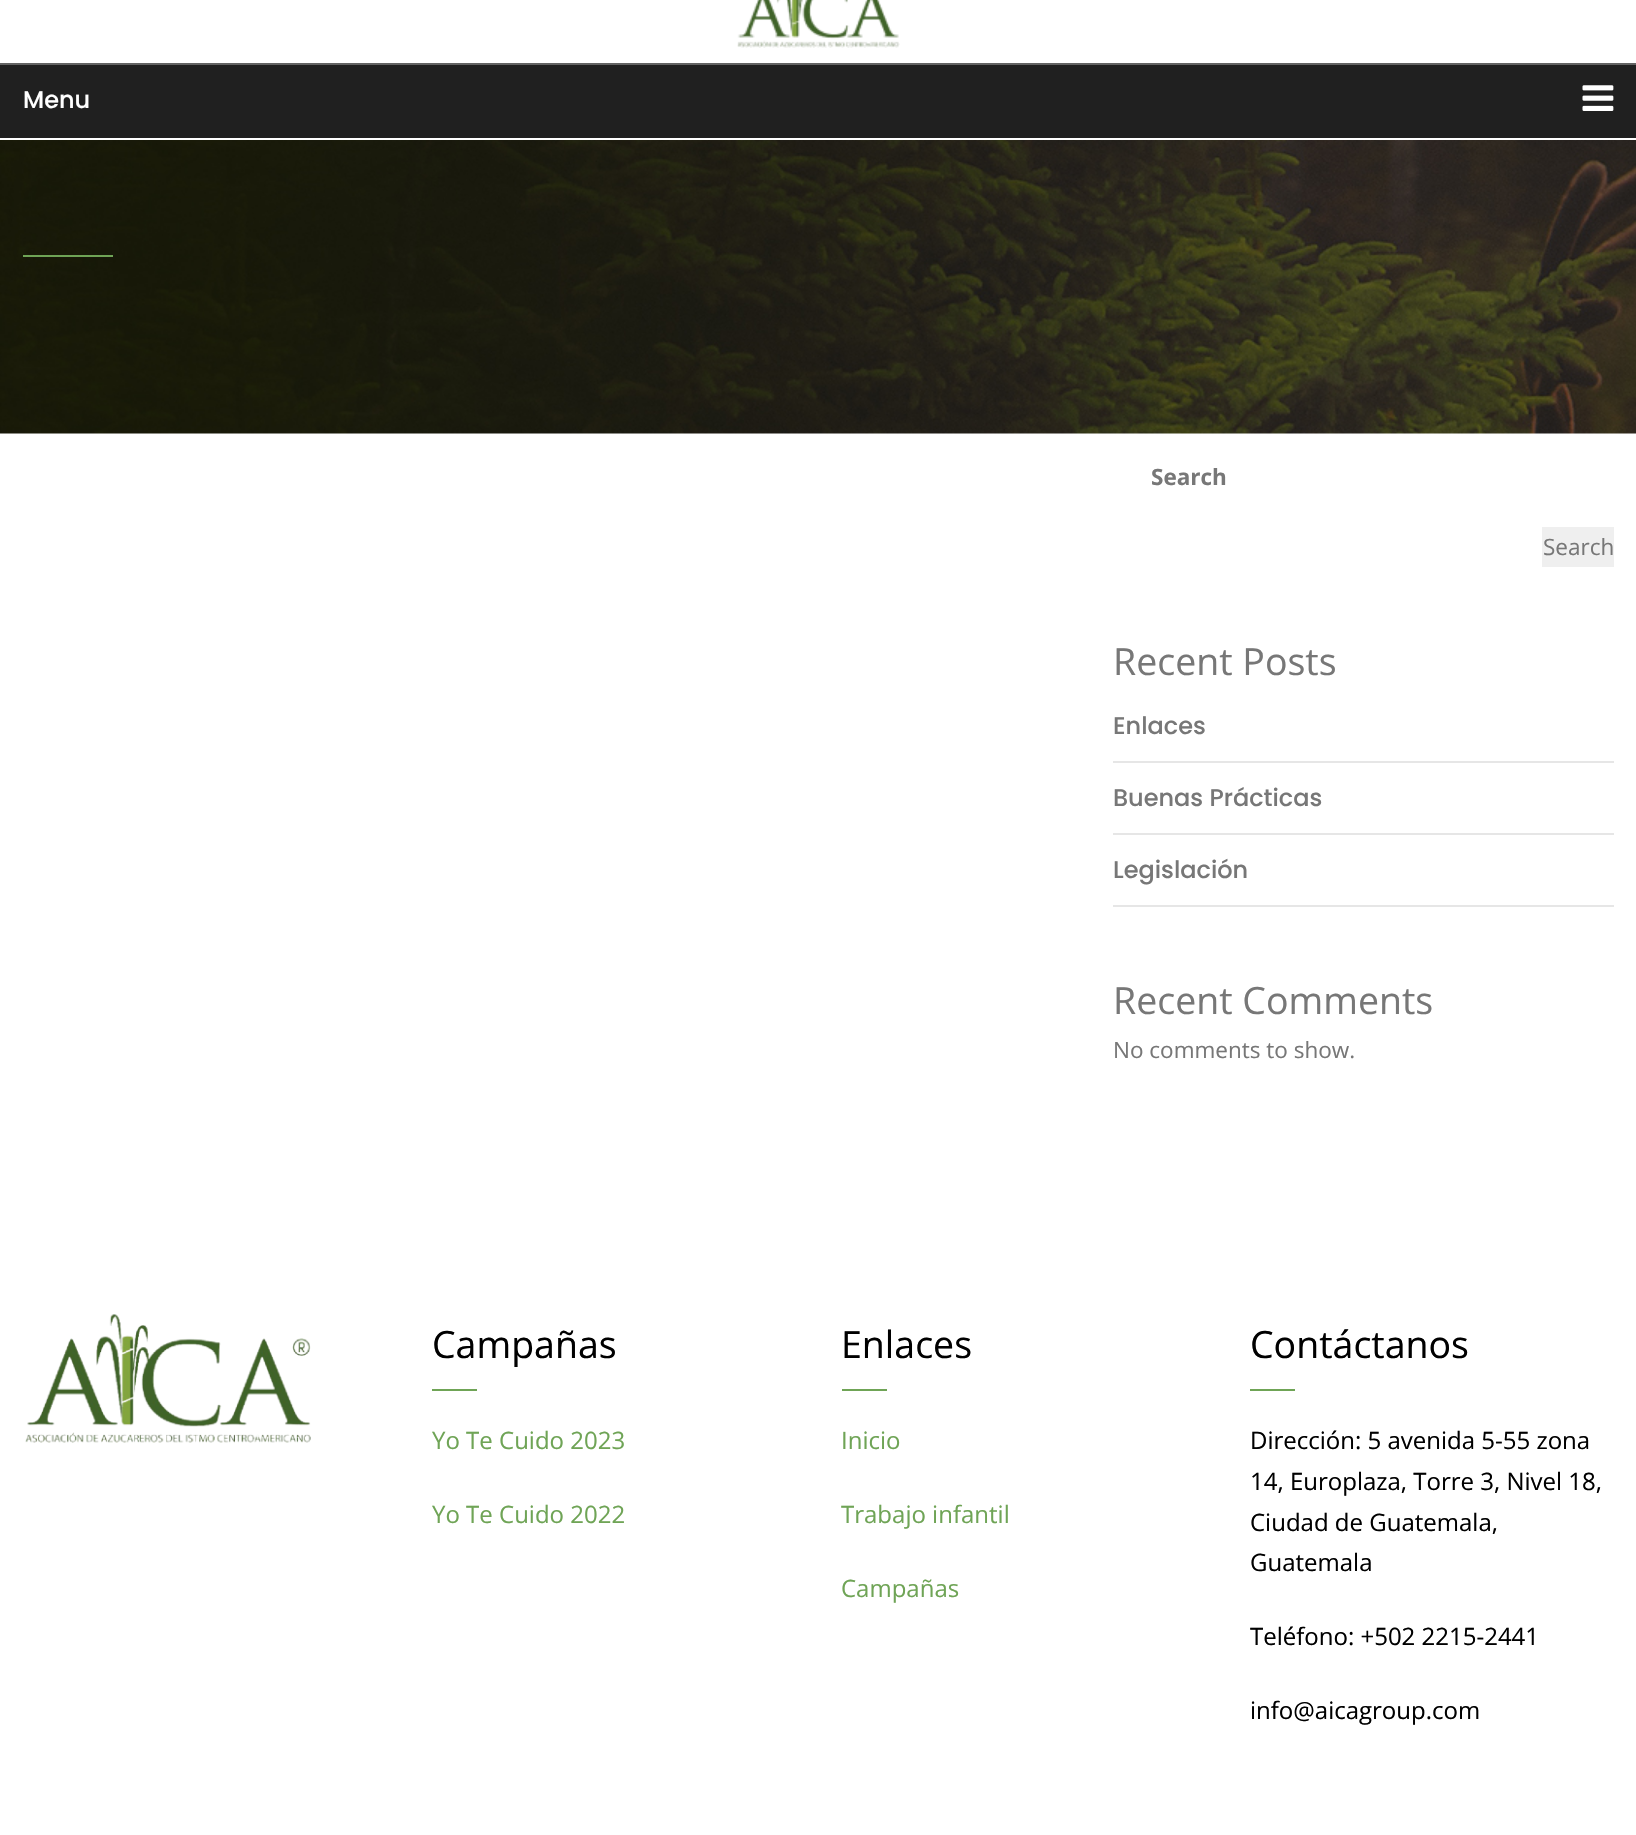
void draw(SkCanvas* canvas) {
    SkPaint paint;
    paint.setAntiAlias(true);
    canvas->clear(0xFFFFFFFF);
    canvas->drawImageRect(SkImages::DeferredFromEncodedData(SkData::MakeFromFileName("img1.png")), SkRect::MakeXYWH(737, 0, 163, 48), SkSamplingOptions());
    paint.setColor(0xFF202020);
    canvas->drawRect(SkRect::MakeXYWH(0, 65, 1636, 73), paint);
    paint.setColor(0xFF636363);
    canvas->drawRect(SkRect::MakeXYWH(0, 63, 1636, 2), paint);
    SkFont font1(fontMgr->matchFamilyStyle("Poppins", SkFontStyle(500, SkFontStyle::kNormal_Width, SkFontStyle::kUpright_Slant)), 24);
    font1.setSubpixel(true);
    paint.setColor(0xFFFFFFFF);
    canvas->drawString("Menu", 23, 108, font1, paint);
    canvas->drawImageRect(SkImages::DeferredFromEncodedData(SkData::MakeFromFileName("img2.png")), SkRect::MakeXYWH(1582, 85, 32, 26), SkSamplingOptions());
    canvas->drawImageRect(SkImages::DeferredFromEncodedData(SkData::MakeFromFileName("img3.png")), SkRect::MakeXYWH(0, 140, 1636, 294), SkSamplingOptions());
    paint.setColor(0xFF6FA456);
    canvas->drawRect(SkRect::MakeXYWH(23, 255, 90, 2), paint);
    SkFont font2(fontMgr->matchFamilyStyle("Open Sans", SkFontStyle::Bold()), 22.5f);
    font2.setSubpixel(true);
    paint.setColor(0xFF777777);
    canvas->drawString("Search", 1151, 485, font2, paint);
    paint.setColor(0xFFEFEFEF);
    canvas->drawRect(SkRect::MakeXYWH(1542, 527, 72, 40), paint);
    SkFont font3(fontMgr->matchFamilyStyle("Open Sans", SkFontStyle::Normal()), 22.5f);
    font3.setSubpixel(true);
    paint.setColor(0xFF777777);
    canvas->drawString("Search", 1543, 555, font3, paint);
    SkFont font4(fontMgr->matchFamilyStyle("Open Sans", SkFontStyle::Normal()), 37.5f);
    font4.setSubpixel(true);
    canvas->drawString("Recent Posts", 1113, 675, font4, paint);
    paint.setColor(0xFFE6E6E6);
    canvas->drawRect(SkRect::MakeXYWH(1113, 761, 501, 2), paint);
    paint.setColor(0xFF777777);
    canvas->drawString("Enlaces", 1113, 734, font1, paint);
    paint.setColor(0xFFE6E6E6);
    canvas->drawRect(SkRect::MakeXYWH(1113, 833, 501, 2), paint);
    paint.setColor(0xFF777777);
    canvas->drawString("Buenas Prácticas", 1113, 806, font1, paint);
    paint.setColor(0xFFE6E6E6);
    canvas->drawRect(SkRect::MakeXYWH(1113, 905, 501, 2), paint);
    paint.setColor(0xFF777777);
    canvas->drawString("Legislación", 1113, 878, font1, paint);
    canvas->drawString("Recent Comments", 1113, 1014, font4, paint);
    canvas->drawString("No comments to show.", 1113, 1058, font3, paint);
    canvas->drawImageRect(SkImages::DeferredFromEncodedData(SkData::MakeFromFileName("img4.png")), SkRect::MakeXYWH(25, 1314, 286, 129), SkSamplingOptions());
    paint.setColor(0xFF000000);
    canvas->drawString("Campañas", 432, 1358, font4, paint);
    paint.setColor(0xFF6FA456);
    canvas->drawRect(SkRect::MakeXYWH(432, 1389, 45, 2), paint);
    SkFont font5(fontMgr->matchFamilyStyle("Open Sans", SkFontStyle::Normal()), 24);
    font5.setSubpixel(true);
    canvas->drawString("Yo Te Cuido 2023", 432, 1449, font5, paint);
    canvas->drawString("Yo Te Cuido 2022", 432, 1523, font5, paint);
    paint.setColor(0xFF000000);
    canvas->drawString("Enlaces", 841, 1358, font4, paint);
    paint.setColor(0xFF6FA456);
    canvas->drawRect(SkRect::MakeXYWH(842, 1389, 45, 2), paint);
    canvas->drawString("Inicio", 841, 1449, font5, paint);
    canvas->drawString("Trabajo infantil", 841, 1523, font5, paint);
    canvas->drawString("Campañas", 841, 1597, font5, paint);
    paint.setColor(0xFF000000);
    canvas->drawString("Contáctanos", 1250, 1358, font4, paint);
    paint.setColor(0xFF6FA456);
    canvas->drawRect(SkRect::MakeXYWH(1250, 1389, 45, 2), paint);
    paint.setColor(0xFF000000);
    canvas->drawString("Dirección: 5 avenida 5-55 zona", 1250, 1449, font5, paint);
    canvas->drawString("14, Europlaza, Torre 3, Nivel 18,", 1250, 1490, font5, paint);
    canvas->drawString("Ciudad de Guatemala,", 1250, 1531, font5, paint);
    canvas->drawString("Guatemala", 1250, 1571, font5, paint);
    canvas->drawString("Teléfono: +502 2215-2441", 1250, 1645, font5, paint);
    canvas->drawString("info@aicagroup.com", 1250, 1719, font5, paint);
}
